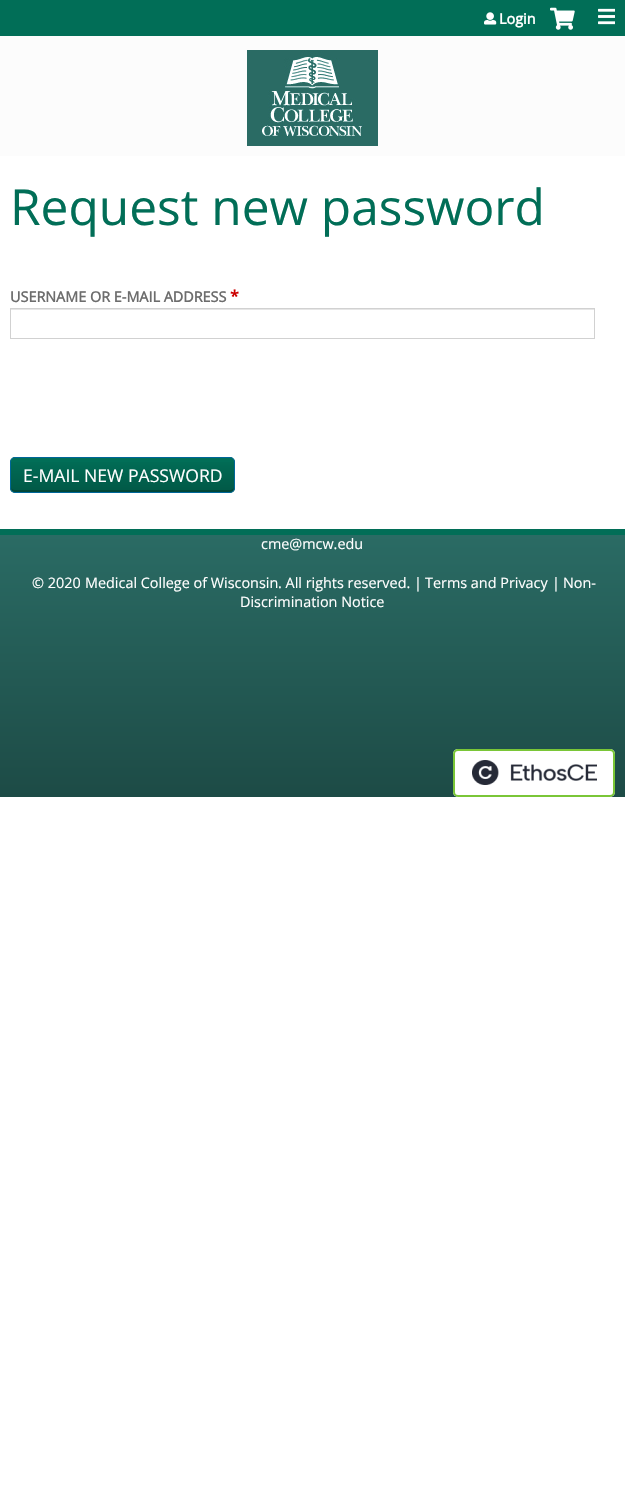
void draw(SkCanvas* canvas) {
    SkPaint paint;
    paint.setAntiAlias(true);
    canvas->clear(0xFFFFFFFF);
    paint.setColor(0xFFFCFCFC);
    canvas->drawRect(SkRect::MakeXYWH(0, 36, 625, 120), paint);
    paint.setColor(0xFF016E57);
    canvas->drawRect(SkRect::MakeXYWH(0, 0, 625, 36), paint);
    canvas->drawImageRect(SkImages::DeferredFromEncodedData(SkData::MakeFromFileName("img1.png")), SkRect::MakeXYWH(484, 12, 13, 13), SkSamplingOptions());
    SkFont font1(fontMgr->matchFamilyStyle("Open Sans", SkFontStyle::Bold()), 14.4f);
    font1.setSubpixel(true);
    paint.setColor(0xFFFFFFFF);
    canvas->drawString("Login", 499, 24, font1, paint);
    canvas->drawImageRect(SkImages::DeferredFromEncodedData(SkData::MakeFromFileName("img2.png")), SkRect::MakeXYWH(550, 7, 25, 23), SkSamplingOptions());
    canvas->drawImageRect(SkImages::DeferredFromEncodedData(SkData::MakeFromFileName("img3.png")), SkRect::MakeXYWH(598, 8, 17, 17), SkSamplingOptions());
    canvas->drawImageRect(SkImages::DeferredFromEncodedData(SkData::MakeFromFileName("img4.png")), SkRect::MakeXYWH(247, 50, 131, 96), SkSamplingOptions());
    SkFont font2(fontMgr->matchFamilyStyle("Open Sans", SkFontStyle::Normal()), 49.6f);
    font2.setSubpixel(true);
    paint.setColor(0xFF016E57);
    canvas->drawString("Request new password", 10, 225, font2, paint);
    paint.setColor(0xFF6D6D6D);
    canvas->drawString("USERNAME OR E-MAIL ADDRESS", 10, 302, font1, paint);
    SkFont font3(fontMgr->matchFamilyStyle("Open Sans", SkFontStyle::Bold()), 16);
    font3.setSubpixel(true);
    paint.setColor(0xFFCC0000);
    canvas->drawString("*", 230, 302, font3, paint);
    paint.setColor(0xFFE6E6E6);
    canvas->drawRect(SkRect::MakeXYWH(11, 309, 583, 1), paint);
    paint.setStyle(SkPaint::kStroke_Style);
    paint.setStrokeWidth(1);
    paint.setColor(0xFFD1D1D1);
    canvas->drawRect(SkRect::MakeXYWH(10.5f, 308.5f, 584, 30), paint);
    paint.setStyle(SkPaint::kFill_Style);
    paint.setColor(0xFF016E57);
    canvas->drawRoundRect(SkRect::MakeXYWH(10, 457, 225, 36), 5, 5, paint);
    canvas->save();
    canvas->clipPath(SkPathBuilder().moveTo(15, 457).lineTo(230, 457).cubicTo(233, 457, 235, 459, 235, 462).lineTo(235, 488).cubicTo(235, 491, 233, 493, 230, 493).lineTo(15, 493).cubicTo(12, 493, 10, 491, 10, 488).lineTo(10, 462).cubicTo(10, 459, 12, 457, 15, 457).close().detach(), true);
    {
        const SkColor colors[] = {0x33000000, 0x00000000};
        const float stops[] = {0, 1};
        const SkPoint ends[] = {{123, 492}, {123, 458}};
        paint.setShader(SkGradientShader::MakeLinear(ends, colors, stops, 2, SkTileMode::kClamp));
        paint.setAlpha(255);
    }
    canvas->drawRect(SkRect::MakeXYWH(10, 462, 225, 30), paint);
    canvas->restore();
    paint.setShader(nullptr);
    paint.setColor(0xFF014738);
    canvas->drawPath(SkPathBuilder().moveTo(11, 488).cubicTo(11, 490, 13, 492, 15, 492).lineTo(230, 492).cubicTo(232, 492, 234, 490, 234, 488).lineTo(231, 490).lineTo(15, 490).cubicTo(13, 490, 12, 489, 11, 488).close().detach(), paint);
    paint.setStyle(SkPaint::kStroke_Style);
    paint.setColor(0xFF006699);
    canvas->drawRoundRect(SkRect::MakeXYWH(10.5f, 457.5f, 224, 35), 4.5f, 4.5f, paint);
    SkFont font4(fontMgr->matchFamilyStyle("Open Sans", SkFontStyle::Normal()), 17.6f);
    font4.setSubpixel(true);
    paint.setStyle(SkPaint::kFill_Style);
    paint.setColor(0xFFFFFFFF);
    canvas->drawString("E-MAIL NEW PASSWORD", 23, 482, font4, paint);
    {
        const SkColor colors[] = {0xFF1D4B46, 0xFF2A6B64};
        const float stops[] = {0, 1};
        const SkPoint ends[] = {{313, 797}, {313, 535}};
        paint.setShader(SkGradientShader::MakeLinear(ends, colors, stops, 2, SkTileMode::kClamp));
        paint.setAlpha(255);
    }
    canvas->drawRect(SkRect::MakeXYWH(0, 535, 625, 262), paint);
    paint.setShader(nullptr);
    paint.setColor(0xFF016E57);
    canvas->drawRect(SkRect::MakeXYWH(0, 529, 625, 6), paint);
    SkFont font5(fontMgr->matchFamilyStyle("Open Sans", SkFontStyle::Normal()), 14.4f);
    font5.setSubpixel(true);
    paint.setColor(0xFFFFFFFF);
    canvas->drawString("cme@mcw.edu", 261, 549, font5, paint);
    canvas->drawString("© 2020", 32, 588, font5, paint);
    canvas->drawString("Medical College of Wisconsin", 85, 588, font5, paint);
    canvas->drawString(". All rights reserved. |", 278, 588, font5, paint);
    canvas->drawString("Terms and Privacy", 425, 588, font5, paint);
    canvas->drawString("|", 552, 588, font5, paint);
    canvas->drawString("Non-", 563, 588, font5, paint);
    canvas->drawString("Discrimination Notice", 240, 607, font5, paint);
    canvas->drawRoundRect(SkRect::MakeXYWH(453, 749, 162, 48), 5, 5, paint);
    canvas->drawImageRect(SkImages::DeferredFromEncodedData(SkData::MakeFromFileName("img5.png")), SkRect::MakeXYWH(472, 760, 125, 25), SkSamplingOptions());
    paint.setStyle(SkPaint::kStroke_Style);
    paint.setStrokeWidth(2);
    paint.setColor(0xFF7AC637);
    canvas->drawRoundRect(SkRect::MakeXYWH(454, 750, 160, 46), 4, 4, paint);
}
